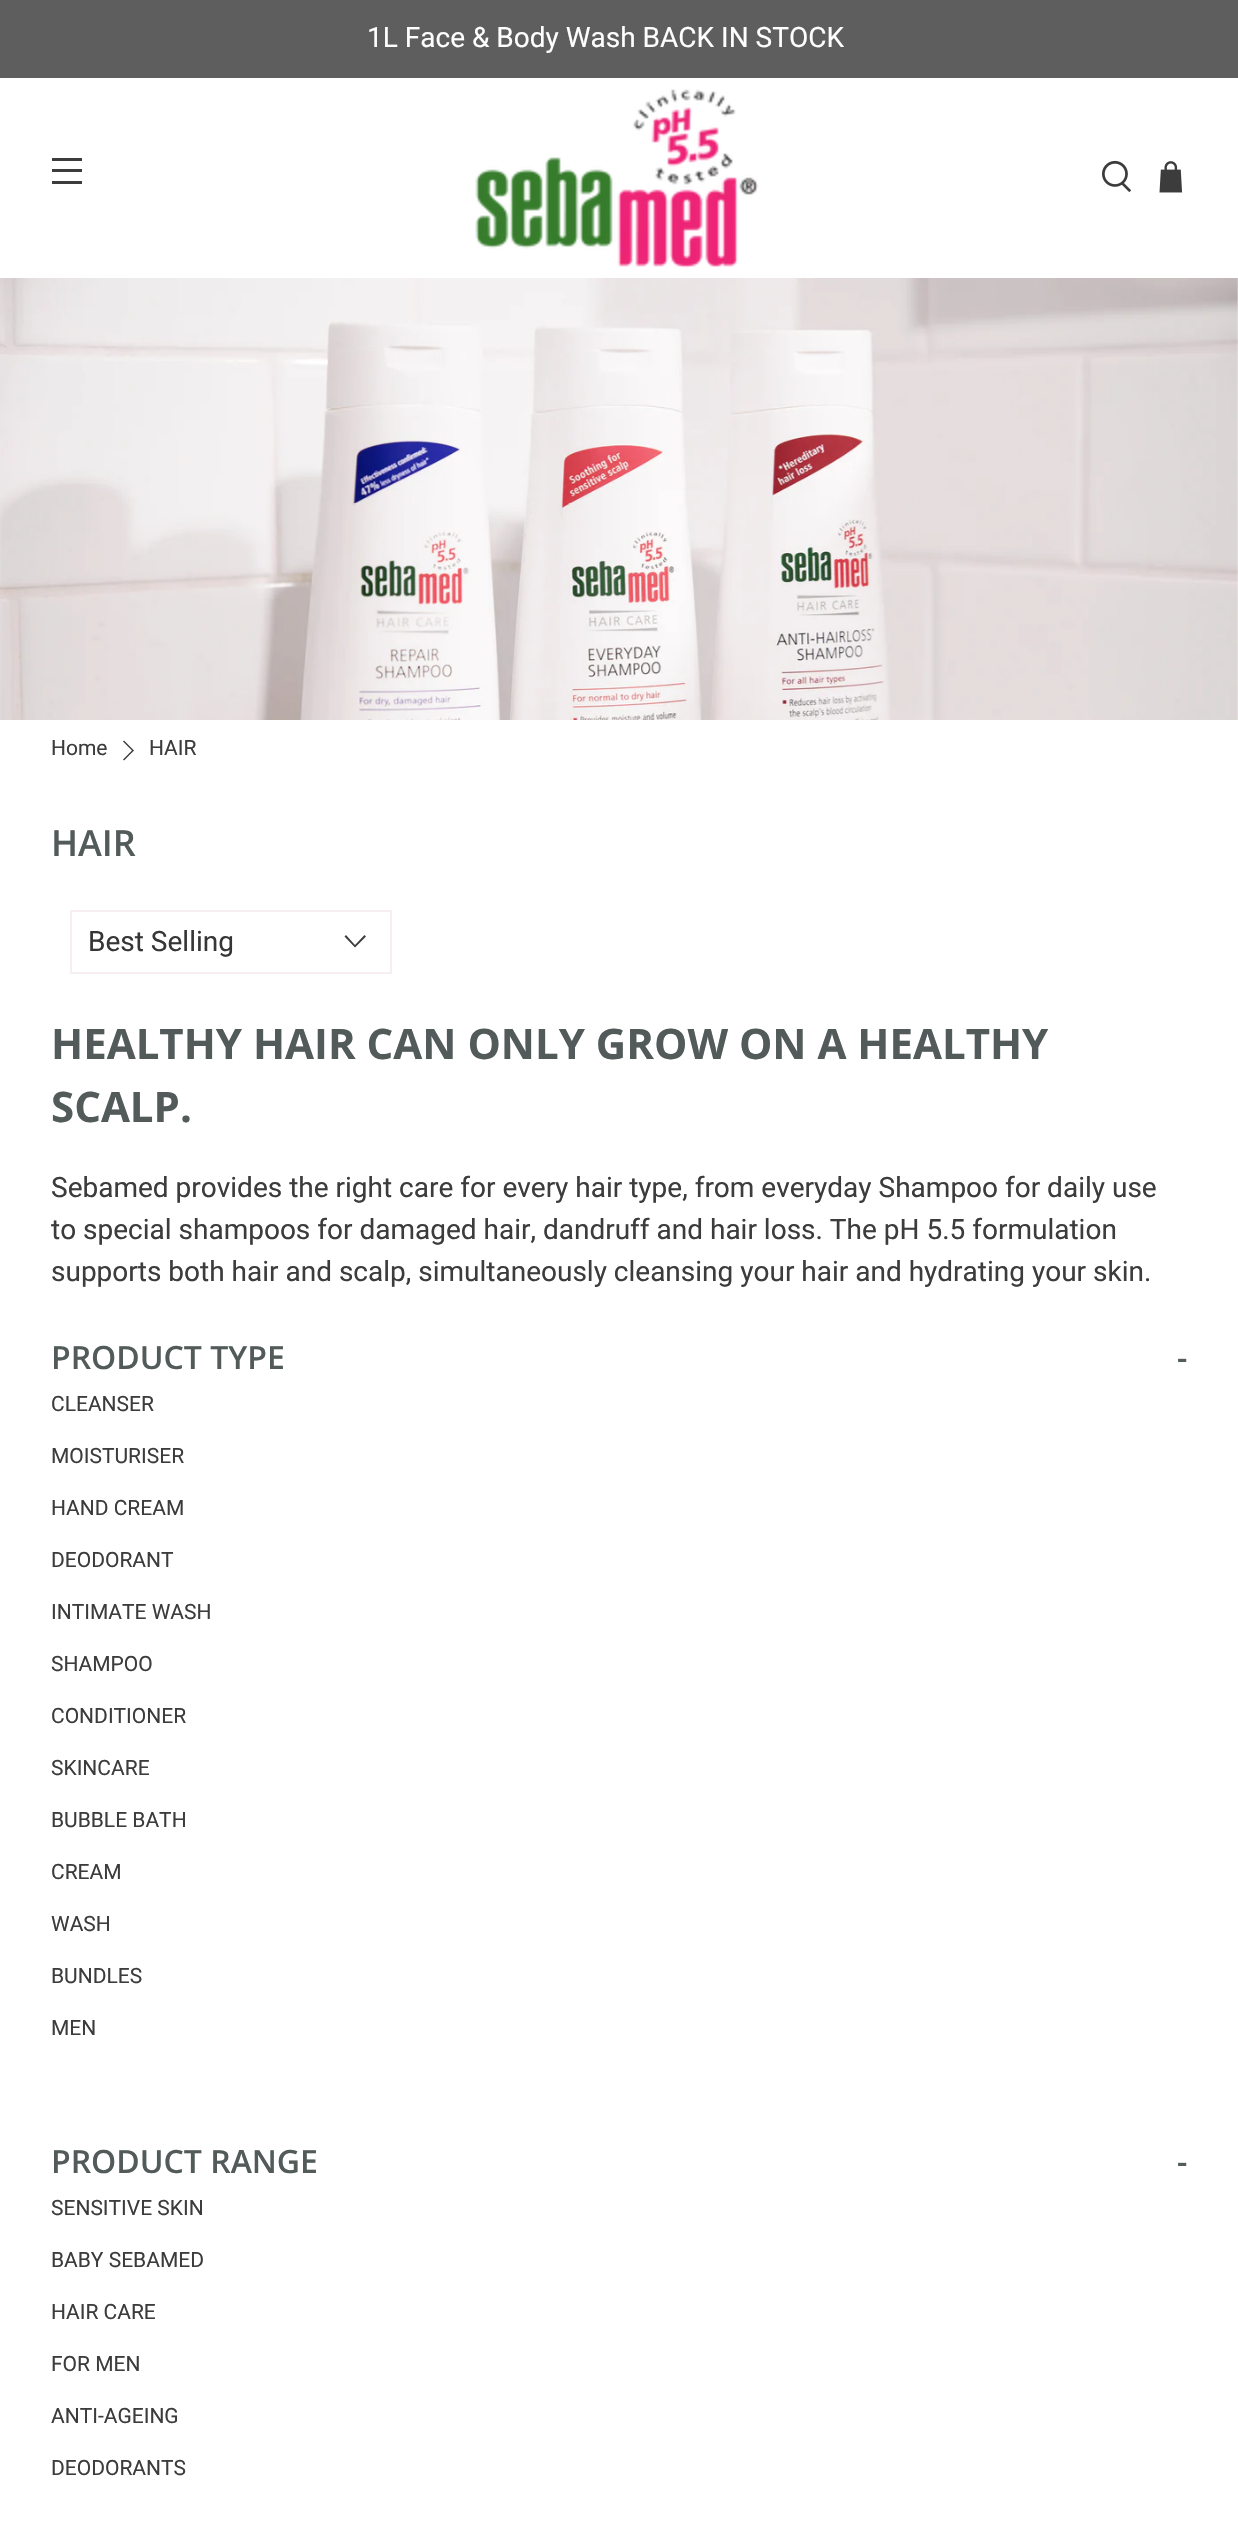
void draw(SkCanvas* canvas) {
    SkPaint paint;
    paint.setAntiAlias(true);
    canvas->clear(0xFFFFFFFF);
    paint.setColor(0xFF5E5E5E);
    canvas->drawRect(SkRect::MakeXYWH(0, 0, 1238, 78), paint);
    SkFont font1(fontMgr->matchFamilyStyle("Roboto", SkFontStyle::Normal()), 28);
    font1.setSubpixel(true);
    paint.setColor(0xFFFFFFFF);
    canvas->drawString("1L Face & Body Wash BACK IN STOCK", 367, 47, font1, paint);
    paint.setColor(0xFF3C3C3C);
    canvas->drawRect(SkRect::MakeXYWH(52, 158, 30, 3), paint);
    canvas->drawRect(SkRect::MakeXYWH(52, 169, 30, 3), paint);
    canvas->drawRect(SkRect::MakeXYWH(52, 181, 30, 3), paint);
    canvas->drawImageRect(SkImages::DeferredFromEncodedData(SkData::MakeFromFileName("img1.png")), SkRect::MakeXYWH(475, 89, 284, 179), SkSamplingOptions());
    canvas->drawImageRect(SkImages::DeferredFromEncodedData(SkData::MakeFromFileName("img2.png")), SkRect::MakeXYWH(1102, 160, 30, 33), SkSamplingOptions());
    canvas->drawImageRect(SkImages::DeferredFromEncodedData(SkData::MakeFromFileName("img3.png")), SkRect::MakeXYWH(1159, 161, 24, 32), SkSamplingOptions());
    canvas->drawImageRect(SkImages::DeferredFromEncodedData(SkData::MakeFromFileName("img4.png")), SkRect::MakeXYWH(0, 278, 1238, 442), SkSamplingOptions());
    SkFont font2(fontMgr->matchFamilyStyle("Roboto", SkFontStyle::Normal()), 21);
    font2.setSubpixel(true);
    canvas->drawString("Home", 51, 755, font2, paint);
    canvas->drawPath(SkPathBuilder().moveTo(124, 760.5f).lineTo(123, 759.5f).lineTo(132, 750.5f).lineTo(123, 741.5f).lineTo(124, 740.5f).lineTo(134, 750.5f).close().detach(), paint);
    canvas->drawString("HAIR", 149, 755, font2, paint);
    SkFont font3(fontMgr->matchFamilyStyle("Open Sans", SkFontStyle(600, SkFontStyle::kNormal_Width, SkFontStyle::kUpright_Slant)), 36);
    font3.setSubpixel(true);
    paint.setColor(0xFF525B5A);
    canvas->drawString("HAIR", 51, 856, font3, paint);
    paint.setStyle(SkPaint::kStroke_Style);
    paint.setStrokeWidth(2);
    paint.setColor(0xFFF7EFEF);
    canvas->drawRect(SkRect::MakeXYWH(71, 911, 320, 62), paint);
    paint.setStyle(SkPaint::kFill_Style);
    paint.setColor(0xFF363636);
    canvas->drawString("Best Selling", 88, 951, font1, paint);
    paint.setColor(0xFF3C3C3C);
    canvas->drawPath(SkPathBuilder().moveTo(355, 947.5f).lineTo(344.5f, 936.5f).lineTo(346, 935).lineTo(355, 945).lineTo(364.5f, 935).lineTo(366, 936.5f).close().detach(), paint);
    SkFont font4(fontMgr->matchFamilyStyle("Open Sans", SkFontStyle::Bold()), 42);
    font4.setSubpixel(true);
    paint.setColor(0xFF525B5A);
    canvas->drawString("HEALTHY HAIR CAN ONLY GROW ON A HEALTHY", 51, 1059, font4, paint);
    canvas->drawString("SCALP.", 51, 1122, font4, paint);
    paint.setColor(0xFF3C3C3C);
    canvas->drawString("Sebamed provides the right care for every hair type, from everyday Shampoo for daily use", 51, 1197, font1, paint);
    canvas->drawString("to special shampoos for damaged hair, dandruff and hair loss. The pH 5.5 formulation", 51, 1239, font1, paint);
    canvas->drawString("supports both hair and scalp, simultaneously cleansing your hair and hydrating your skin.", 51, 1281, font1, paint);
    SkFont font5(fontMgr->matchFamilyStyle("Open Sans", SkFontStyle(600, SkFontStyle::kNormal_Width, SkFontStyle::kUpright_Slant)), 32);
    font5.setSubpixel(true);
    paint.setColor(0xFF525B5A);
    canvas->drawString("PRODUCT TYPE", 51, 1369, font5, paint);
    canvas->drawString("-", 1177, 1369, font5, paint);
    paint.setColor(0xFF3C3C3C);
    canvas->drawString("CLEANSER", 51, 1411, font2, paint);
    canvas->drawString("MOISTURISER", 51, 1463, font2, paint);
    canvas->drawString("HAND CREAM", 51, 1515, font2, paint);
    canvas->drawString("DEODORANT", 51, 1567, font2, paint);
    canvas->drawString("INTIMATE WASH", 51, 1619, font2, paint);
    canvas->drawString("SHAMPOO", 51, 1671, font2, paint);
    canvas->drawString("CONDITIONER", 51, 1723, font2, paint);
    canvas->drawString("SKINCARE", 51, 1775, font2, paint);
    canvas->drawString("BUBBLE BATH", 51, 1827, font2, paint);
    canvas->drawString("CREAM", 51, 1879, font2, paint);
    canvas->drawString("WASH", 51, 1931, font2, paint);
    canvas->drawString("BUNDLES", 51, 1983, font2, paint);
    canvas->drawString("MEN", 51, 2035, font2, paint);
    paint.setColor(0xFF525B5A);
    canvas->drawString("PRODUCT RANGE", 51, 2173, font5, paint);
    canvas->drawString("-", 1177, 2173, font5, paint);
    paint.setColor(0xFF3C3C3C);
    canvas->drawString("SENSITIVE SKIN", 51, 2215, font2, paint);
    canvas->drawString("BABY SEBAMED", 51, 2267, font2, paint);
    canvas->drawString("HAIR CARE", 51, 2319, font2, paint);
    canvas->drawString("FOR MEN", 51, 2371, font2, paint);
    canvas->drawString("ANTI-AGEING", 51, 2423, font2, paint);
    canvas->drawString("DEODORANTS", 51, 2475, font2, paint);
}
